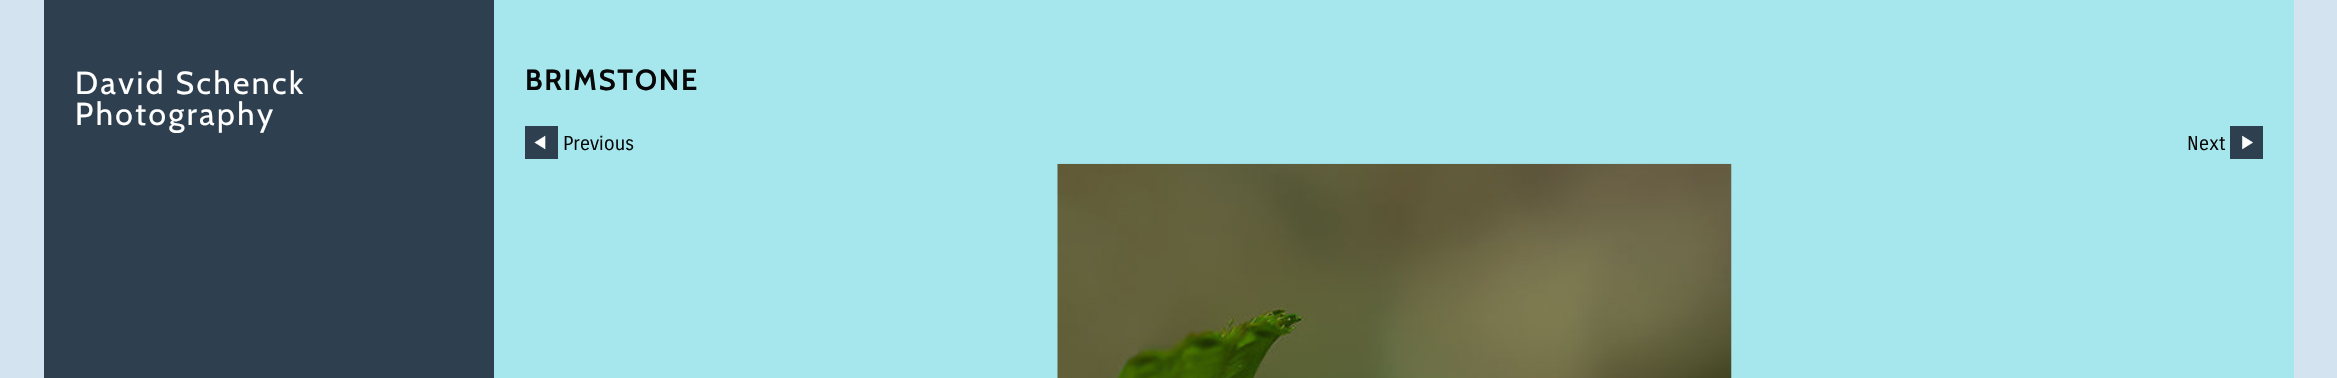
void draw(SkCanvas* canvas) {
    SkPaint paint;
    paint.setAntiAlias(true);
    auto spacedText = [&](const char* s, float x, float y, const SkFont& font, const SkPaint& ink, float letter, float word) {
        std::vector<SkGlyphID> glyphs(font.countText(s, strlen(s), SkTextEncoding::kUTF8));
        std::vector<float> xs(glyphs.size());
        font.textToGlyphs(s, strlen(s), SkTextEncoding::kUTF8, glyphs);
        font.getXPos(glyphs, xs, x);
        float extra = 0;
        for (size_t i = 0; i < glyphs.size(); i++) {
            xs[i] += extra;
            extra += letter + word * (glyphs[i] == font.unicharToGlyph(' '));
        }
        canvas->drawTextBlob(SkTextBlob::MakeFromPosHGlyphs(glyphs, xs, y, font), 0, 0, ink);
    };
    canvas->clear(0xFFD3E4F0);
    paint.setColor(0xFFA5E7ED);
    canvas->drawRect(SkRect::MakeXYWH(494, 0, 1800, 378), paint);
    paint.setColor(0xFF2E3F4F);
    canvas->drawRect(SkRect::MakeXYWH(44, 0, 450, 378), paint);
    SkFont font1(fontMgr->matchFamilyStyle("Cabin", SkFontStyle::Normal()), 31.75f);
    font1.setSubpixel(true);
    paint.setColor(0xFFFFFFFF);
    spacedText("David Schenck", 75, 94, font1, paint, 2.5f, 0);
    spacedText("Photography", 75, 125, font1, paint, 2.5f, 0);
    SkFont font2(fontMgr->matchFamilyStyle("Cabin", SkFontStyle::Bold()), 28);
    font2.setSubpixel(true);
    paint.setColor(0xFF080808);
    spacedText("BRIMSTONE", 525, 90, font2, paint, 2.5f, 0);
    paint.setColor(0xFF2E3F4F);
    canvas->drawRect(SkRect::MakeXYWH(525, 126, 33, 33), paint);
    canvas->drawImageRect(SkImages::DeferredFromEncodedData(SkData::MakeFromFileName("img1.png")), SkRect::MakeXYWH(534, 135, 12, 15), SkSamplingOptions());
    SkFont font3(fontMgr->matchFamilyStyle("Carrois Gothic", SkFontStyle::Normal()), 19.5f);
    font3.setSubpixel(true);
    paint.setColor(0xFF080808);
    canvas->drawString("Previous", 563, 150, font3, paint);
    canvas->drawString("Next", 2187, 150, font3, paint);
    paint.setColor(0xFF2E3F4F);
    canvas->drawRect(SkRect::MakeXYWH(2230, 126, 33, 33), paint);
    canvas->drawImageRect(SkImages::DeferredFromEncodedData(SkData::MakeFromFileName("img2.png")), SkRect::MakeXYWH(2242, 135, 11, 15), SkSamplingOptions());
    canvas->drawImageRect(SkImages::DeferredFromEncodedData(SkData::MakeFromFileName("img3.png")), SkRect::MakeXYWH(1057, 163, 675, 215), SkSamplingOptions());
}
